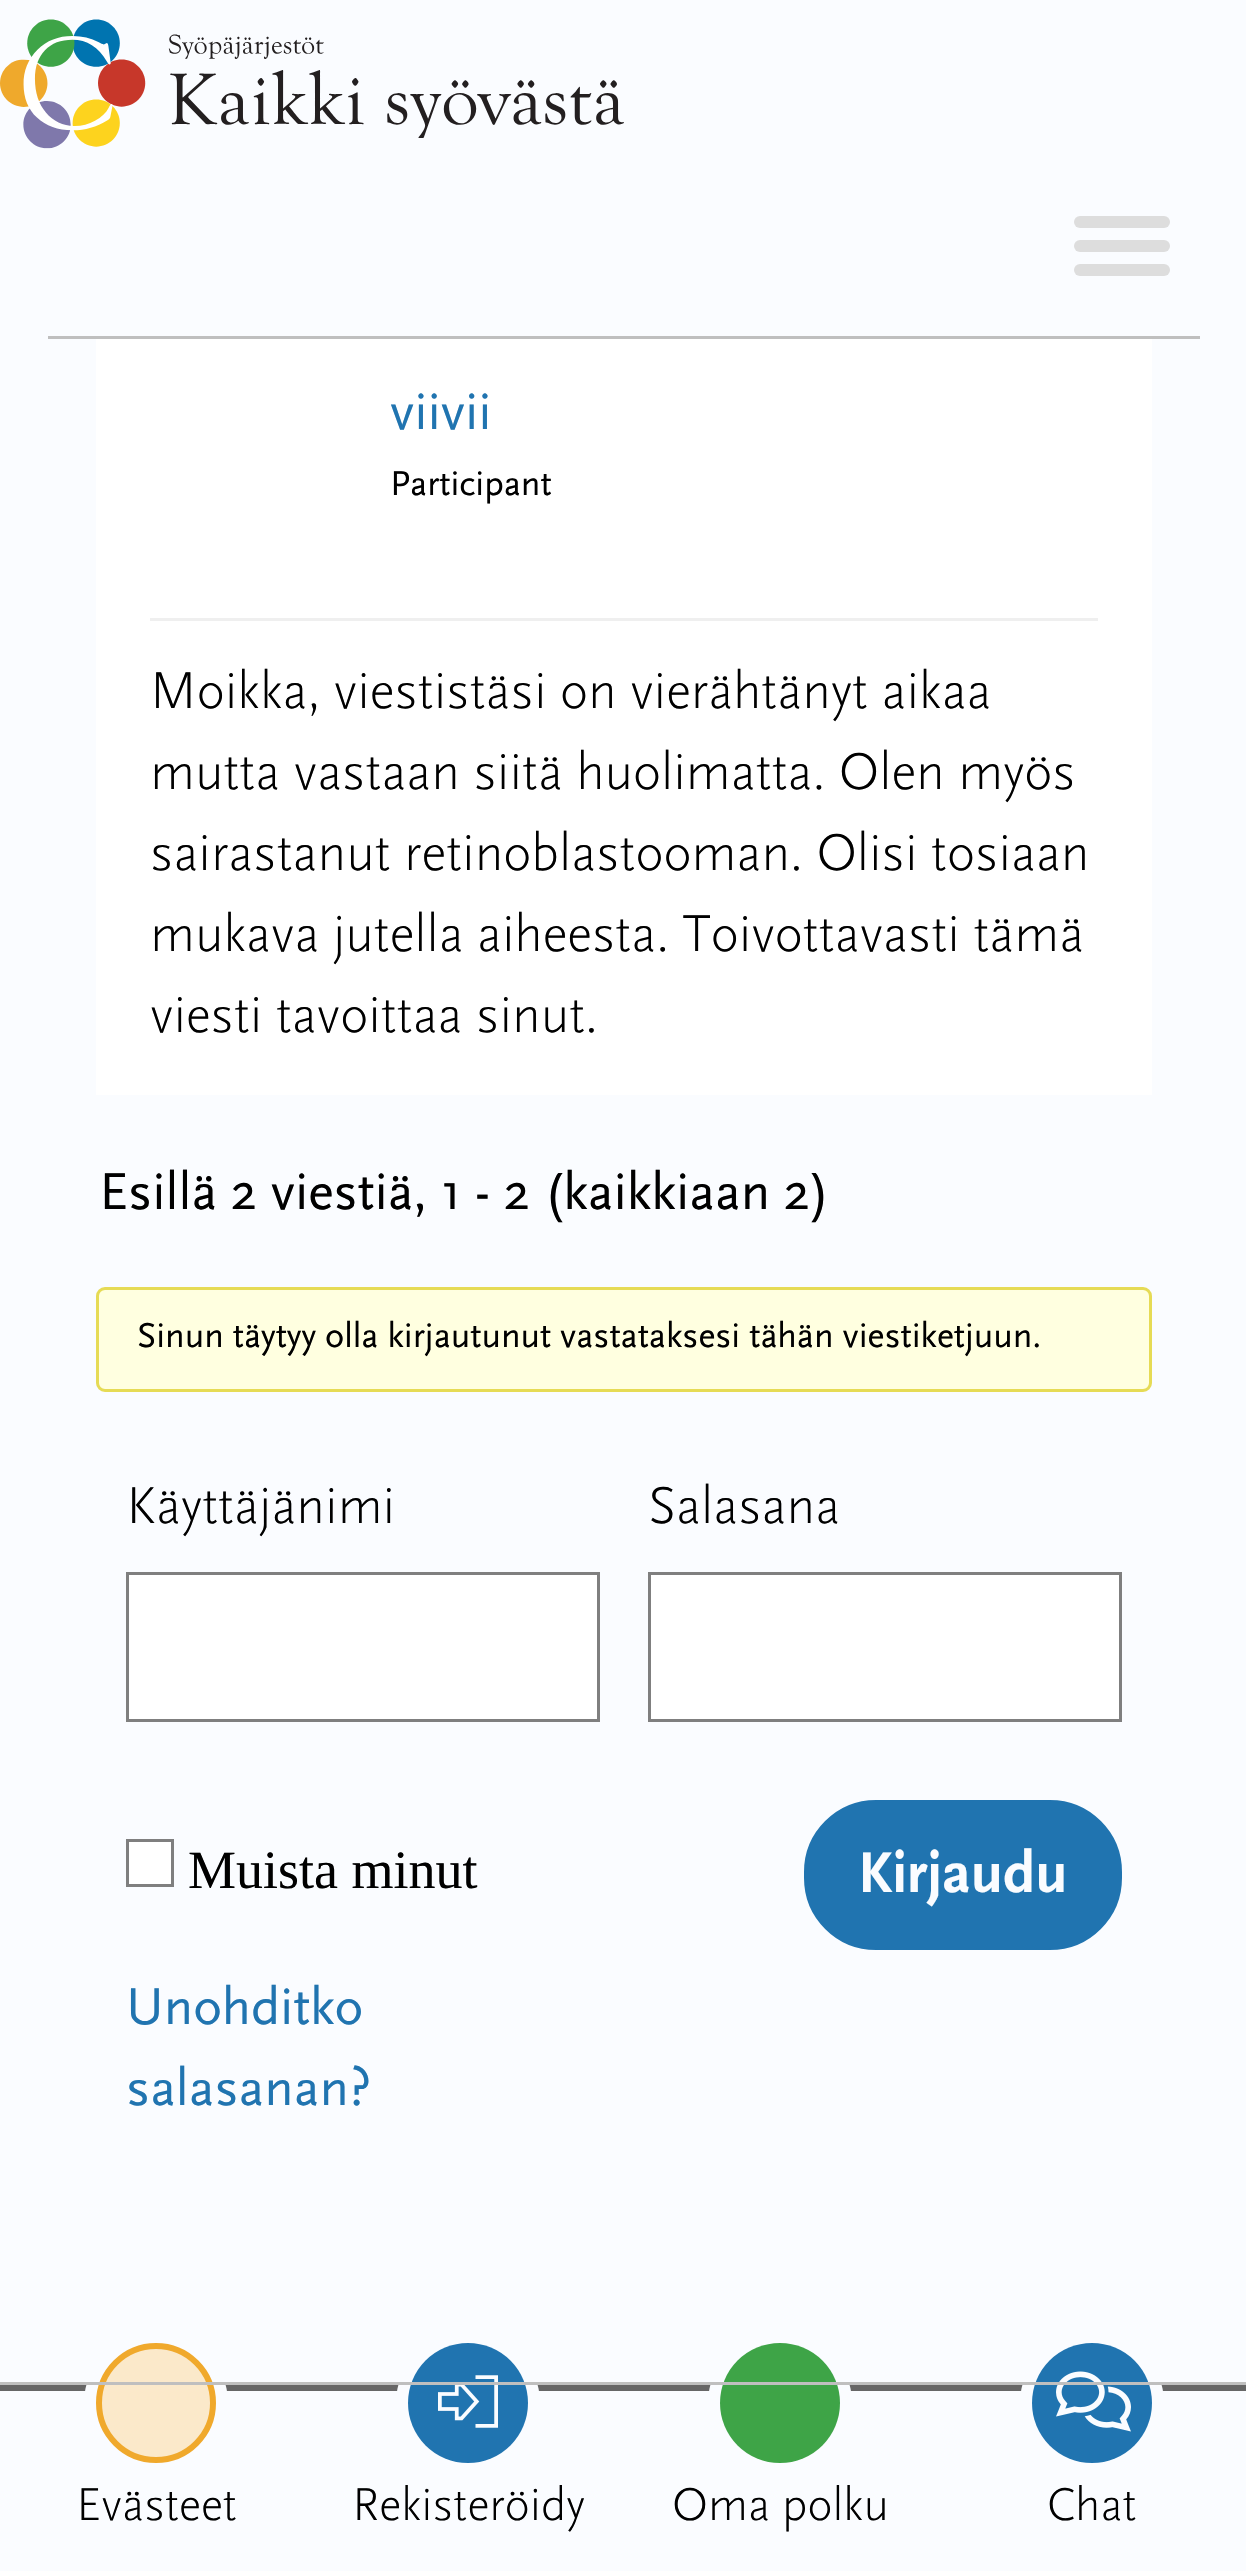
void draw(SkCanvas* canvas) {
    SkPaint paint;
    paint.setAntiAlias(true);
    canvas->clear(0xFFFAFCFF);
    paint.setColor(0xFFFFFFFF);
    canvas->drawRect(SkRect::MakeXYWH(96, 339, 1056, 756), paint);
    paint.setColor(0xFFEFEFEF);
    canvas->drawRect(SkRect::MakeXYWH(150, 618, 948, 3), paint);
    SkFont font1(fontMgr->matchFamilyStyle("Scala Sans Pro", SkFontStyle::Normal()), 54);
    font1.setSubpixel(true);
    paint.setColor(0xFF2074B0);
    canvas->drawString("viivii", 390, 429, font1, paint);
    SkFont font2(fontMgr->matchFamilyStyle("Scala Sans Pro", SkFontStyle::Normal()), 36);
    font2.setSubpixel(true);
    paint.setColor(0xFF000000);
    canvas->drawString("Participant", 390, 495, font2, paint);
    SkFont font3(fontMgr->matchFamilyStyle("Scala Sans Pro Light", SkFontStyle(300, SkFontStyle::kNormal_Width, SkFontStyle::kUpright_Slant)), 54);
    font3.setSubpixel(true);
    canvas->drawString("Moikka, viestistäsi on vierähtänyt aikaa", 150, 708, font3, paint);
    canvas->drawString("mutta vastaan siitä huolimatta. Olen myös", 150, 789, font3, paint);
    canvas->drawString("sairastanut retinoblastooman. Olisi tosiaan", 150, 870, font3, paint);
    canvas->drawString("mukava jutella aiheesta. Toivottavasti tämä", 150, 951, font3, paint);
    canvas->drawString("viesti tavoittaa sinut.", 150, 1032, font3, paint);
    canvas->drawString("Esillä 2 viestiä, 1 - 2 (kaikkiaan 2)", 99, 1209, font1, paint);
    paint.setColor(0xFFFFFFE0);
    canvas->drawRoundRect(SkRect::MakeXYWH(97.5f, 1288.5f, 1053, 102), 7.5f, 7.5f, paint);
    paint.setStyle(SkPaint::kStroke_Style);
    paint.setStrokeWidth(3);
    paint.setColor(0xFFE6DB55);
    canvas->drawRoundRect(SkRect::MakeXYWH(97.5f, 1288.5f, 1053, 102), 7.5f, 7.5f, paint);
    paint.setStyle(SkPaint::kFill_Style);
    paint.setColor(0xFF000000);
    canvas->drawString("Sinun täytyy olla kirjautunut vastataksesi tähän viestiketjuun.", 137, 1347, font2, paint);
    canvas->drawString("Käyttäjänimi", 126, 1523, font3, paint);
    paint.setColor(0xFFFFFFFF);
    canvas->drawRect(SkRect::MakeXYWH(127.5f, 1573.5f, 471, 147), paint);
    paint.setStyle(SkPaint::kStroke_Style);
    paint.setColor(0xFF7F7F7F);
    canvas->drawRect(SkRect::MakeXYWH(127.5f, 1573.5f, 471, 147), paint);
    paint.setStyle(SkPaint::kFill_Style);
    paint.setColor(0xFF000000);
    canvas->drawString("Salasana", 648, 1523, font3, paint);
    paint.setColor(0xFFFFFFFF);
    canvas->drawRect(SkRect::MakeXYWH(649.5f, 1573.5f, 471, 147), paint);
    paint.setStyle(SkPaint::kStroke_Style);
    paint.setColor(0xFF7F7F7F);
    canvas->drawRect(SkRect::MakeXYWH(649.5f, 1573.5f, 471, 147), paint);
    paint.setStyle(SkPaint::kFill_Style);
    paint.setColor(0xFFFFFFFF);
    canvas->drawRect(SkRect::MakeXYWH(127.5f, 1840.5f, 45, 45), paint);
    paint.setStyle(SkPaint::kStroke_Style);
    paint.setColor(0xFF7F7F7F);
    canvas->drawRect(SkRect::MakeXYWH(127.5f, 1840.5f, 45, 45), paint);
    SkFont font4(fontMgr->matchFamilyStyle("Liberation Serif", SkFontStyle::Normal()), 54);
    font4.setSubpixel(true);
    paint.setStyle(SkPaint::kFill_Style);
    paint.setColor(0xFF000000);
    canvas->drawString("Muista minut", 188, 1888, font4, paint);
    paint.setColor(0xFF2074B0);
    canvas->drawRoundRect(SkRect::MakeXYWH(807, 1803, 312, 144), 69, 69, paint);
    paint.setStyle(SkPaint::kStroke_Style);
    paint.setStrokeWidth(6);
    canvas->drawRoundRect(SkRect::MakeXYWH(807, 1803, 312, 144), 69, 69, paint);
    SkFont font5(fontMgr->matchFamilyStyle("Scala Sans Pro", SkFontStyle::Bold()), 60);
    font5.setSubpixel(true);
    paint.setStyle(SkPaint::kFill_Style);
    paint.setColor(0xFFFAFCFF);
    canvas->drawString("Kirjaudu", 858, 1892, font5, paint);
    paint.setColor(0xFF2074B0);
    canvas->drawString("Unohditko", 126, 2024, font1, paint);
    canvas->drawString("salasanan?", 126, 2105, font1, paint);
    canvas->drawImageRect(SkImages::DeferredFromEncodedData(SkData::MakeFromFileName("img1.png")), SkRect::MakeXYWH(0, 19, 624, 130), SkSamplingOptions());
    paint.setColor(0xFFDDDDDD);
    canvas->drawRoundRect(SkRect::MakeXYWH(1074, 216, 96, 12), 6, 6, paint);
    canvas->drawRoundRect(SkRect::MakeXYWH(1074, 240, 96, 12), 6, 6, paint);
    canvas->drawRoundRect(SkRect::MakeXYWH(1074, 264, 96, 12), 6, 6, paint);
    paint.setColor(0xFFBFBFBF);
    canvas->drawRect(SkRect::MakeXYWH(48, 336, 1152, 3), paint);
    paint.setColor(0xFF666666);
    canvas->drawRect(SkRect::MakeXYWH(0, 2385, 1246, 6), paint);
    paint.setColor(0xFFFAFCFF);
    canvas->drawCircle(156, 2403, 72, paint);
    paint.setColor(0xFFFBE9CA);
    canvas->drawCircle(156, 2403, 57, paint);
    paint.setStyle(SkPaint::kStroke_Style);
    paint.setColor(0xFFF0A92C);
    canvas->drawCircle(156, 2403, 57, paint);
    SkFont font6(fontMgr->matchFamilyStyle("Scala Sans Pro Light", SkFontStyle(300, SkFontStyle::kNormal_Width, SkFontStyle::kUpright_Slant)), 48);
    font6.setSubpixel(true);
    paint.setStyle(SkPaint::kFill_Style);
    paint.setColor(0xFF000000);
    canvas->drawString("Evästeet", 76, 2520, font6, paint);
    paint.setColor(0xFFFAFCFF);
    canvas->drawCircle(468, 2403, 72, paint);
    paint.setColor(0xFF2074B0);
    canvas->drawCircle(468, 2403, 60, paint);
    canvas->drawImageRect(SkImages::DeferredFromEncodedData(SkData::MakeFromFileName("img2.png")), SkRect::MakeXYWH(438, 2375, 60, 53), SkSamplingOptions());
    paint.setColor(0xFF000000);
    canvas->drawString("Rekisteröidy", 352, 2520, font6, paint);
    paint.setColor(0xFFFAFCFF);
    canvas->drawCircle(780, 2403, 72, paint);
    paint.setColor(0xFF3EA447);
    canvas->drawCircle(780, 2403, 60, paint);
    paint.setColor(0xFF000000);
    canvas->drawString("Oma polku", 672, 2520, font6, paint);
    paint.setColor(0xFFFAFCFF);
    canvas->drawCircle(1092, 2403, 72, paint);
    paint.setColor(0xFF2074B0);
    canvas->drawCircle(1092, 2403, 60, paint);
    canvas->drawImageRect(SkImages::DeferredFromEncodedData(SkData::MakeFromFileName("img3.png")), SkRect::MakeXYWH(1056, 2371, 75, 61), SkSamplingOptions());
    paint.setColor(0xFF000000);
    canvas->drawString("Chat", 1047, 2520, font6, paint);
    paint.setColor(0xFFBFBFBF);
    canvas->drawRect(SkRect::MakeXYWH(0, 2382, 1246, 3), paint);
}
